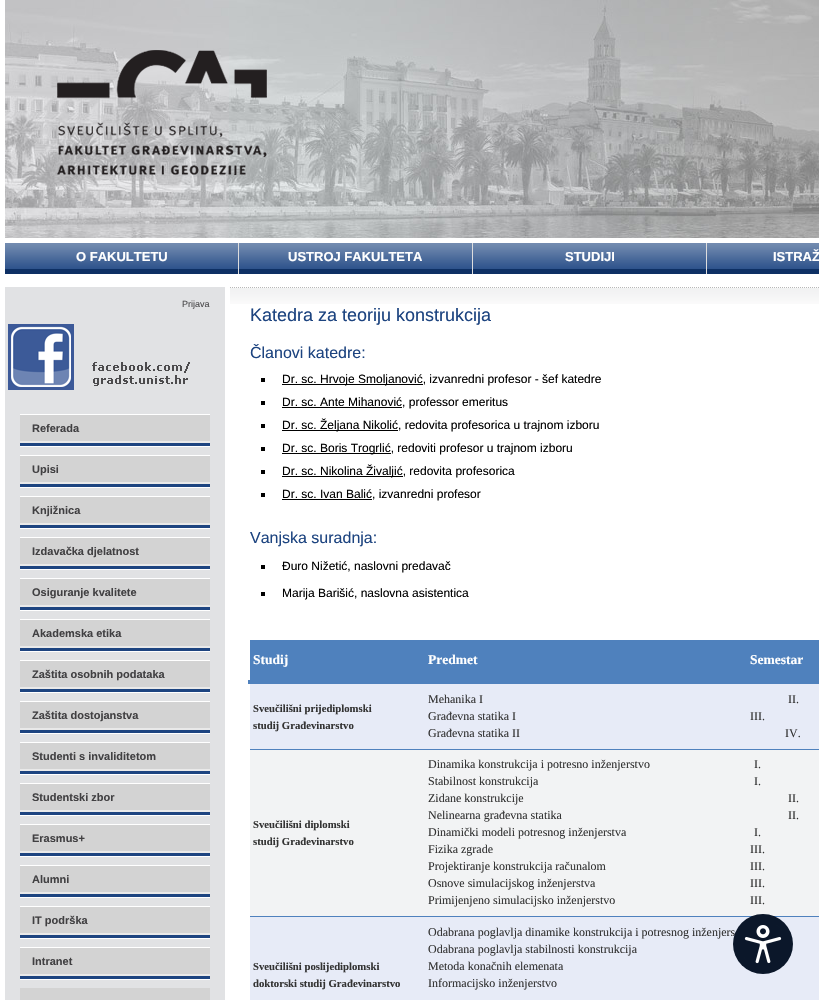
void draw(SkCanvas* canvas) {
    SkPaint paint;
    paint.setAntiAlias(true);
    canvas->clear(0xFFFFFFFF);
    canvas->drawImageRect(SkImages::DeferredFromEncodedData(SkData::MakeFromFileName("img1.png")), SkRect::MakeXYWH(5, 0, 814, 238), SkSamplingOptions());
    canvas->drawImageRect(SkImages::DeferredFromEncodedData(SkData::MakeFromFileName("img2.png")), SkRect::MakeXYWH(57, 50, 210, 125), SkSamplingOptions());
    canvas->drawImageRect(SkImages::DeferredFromEncodedData(SkData::MakeFromFileName("img3.png")), SkRect::MakeXYWH(5, 243, 233, 31), SkSamplingOptions());
    paint.setColor(0xFFDDDDDE);
    canvas->drawRect(SkRect::MakeXYWH(238, 243, 1, 31), paint);
    SkFont font1(fontMgr->matchFamilyStyle("Liberation Sans", SkFontStyle::Bold()), 13);
    font1.setSubpixel(true);
    paint.setColor(0xFFFFFFFF);
    canvas->drawString("O FAKULTETU", 76, 261, font1, paint);
    canvas->drawImageRect(SkImages::DeferredFromEncodedData(SkData::MakeFromFileName("img3.png")), SkRect::MakeXYWH(239, 243, 233, 31), SkSamplingOptions());
    paint.setColor(0xFFDDDDDE);
    canvas->drawRect(SkRect::MakeXYWH(472, 243, 1, 31), paint);
    paint.setColor(0xFFFFFFFF);
    canvas->drawString("USTROJ FAKULTETA", 288, 261, font1, paint);
    canvas->drawImageRect(SkImages::DeferredFromEncodedData(SkData::MakeFromFileName("img3.png")), SkRect::MakeXYWH(473, 243, 233, 31), SkSamplingOptions());
    paint.setColor(0xFFDDDDDE);
    canvas->drawRect(SkRect::MakeXYWH(706, 243, 1, 31), paint);
    paint.setColor(0xFFFFFFFF);
    canvas->drawString("STUDIJI", 565, 261, font1, paint);
    canvas->drawImageRect(SkImages::DeferredFromEncodedData(SkData::MakeFromFileName("img4.png")), SkRect::MakeXYWH(707, 243, 112, 31), SkSamplingOptions());
    canvas->drawString("ISTRAŽ", 773, 261, font1, paint);
    paint.setColor(0xFFE1E2E4);
    canvas->drawRect(SkRect::MakeXYWH(5, 287, 220, 713), paint);
    SkFont font2(fontMgr->matchFamilyStyle("Liberation Sans", SkFontStyle::Normal()), 9);
    font2.setSubpixel(true);
    paint.setColor(0xFF4C4B4D);
    canvas->drawString("Prijava", 182, 307, font2, paint);
    canvas->drawImageRect(SkImages::DeferredFromEncodedData(SkData::MakeFromFileName("img5.png")), SkRect::MakeXYWH(8, 324, 182, 66), SkSamplingOptions());
    canvas->drawImageRect(SkImages::DeferredFromEncodedData(SkData::MakeFromFileName("img6.png")), SkRect::MakeXYWH(20, 414, 190, 33), SkSamplingOptions());
    SkFont font3(fontMgr->matchFamilyStyle("Liberation Sans", SkFontStyle::Bold()), 11);
    font3.setSubpixel(true);
    paint.setColor(0xFF414042);
    canvas->drawString("Referada", 32, 432, font3, paint);
    canvas->drawImageRect(SkImages::DeferredFromEncodedData(SkData::MakeFromFileName("img6.png")), SkRect::MakeXYWH(20, 455, 190, 33), SkSamplingOptions());
    canvas->drawString("Upisi", 32, 473, font3, paint);
    canvas->drawImageRect(SkImages::DeferredFromEncodedData(SkData::MakeFromFileName("img6.png")), SkRect::MakeXYWH(20, 496, 190, 33), SkSamplingOptions());
    canvas->drawString("Knjižnica", 32, 514, font3, paint);
    canvas->drawImageRect(SkImages::DeferredFromEncodedData(SkData::MakeFromFileName("img6.png")), SkRect::MakeXYWH(20, 537, 190, 33), SkSamplingOptions());
    canvas->drawString("Izdavačka djelatnost", 32, 555, font3, paint);
    canvas->drawImageRect(SkImages::DeferredFromEncodedData(SkData::MakeFromFileName("img6.png")), SkRect::MakeXYWH(20, 578, 190, 33), SkSamplingOptions());
    canvas->drawString("Osiguranje kvalitete", 32, 596, font3, paint);
    canvas->drawImageRect(SkImages::DeferredFromEncodedData(SkData::MakeFromFileName("img6.png")), SkRect::MakeXYWH(20, 619, 190, 33), SkSamplingOptions());
    canvas->drawString("Akademska etika", 32, 637, font3, paint);
    canvas->drawImageRect(SkImages::DeferredFromEncodedData(SkData::MakeFromFileName("img6.png")), SkRect::MakeXYWH(20, 660, 190, 33), SkSamplingOptions());
    canvas->drawString("Zaštita osobnih podataka", 32, 678, font3, paint);
    canvas->drawImageRect(SkImages::DeferredFromEncodedData(SkData::MakeFromFileName("img6.png")), SkRect::MakeXYWH(20, 701, 190, 33), SkSamplingOptions());
    canvas->drawString("Zaštita dostojanstva", 32, 719, font3, paint);
    canvas->drawImageRect(SkImages::DeferredFromEncodedData(SkData::MakeFromFileName("img6.png")), SkRect::MakeXYWH(20, 742, 190, 33), SkSamplingOptions());
    canvas->drawString("Studenti s invaliditetom", 32, 760, font3, paint);
    canvas->drawImageRect(SkImages::DeferredFromEncodedData(SkData::MakeFromFileName("img6.png")), SkRect::MakeXYWH(20, 783, 190, 33), SkSamplingOptions());
    canvas->drawString("Studentski zbor", 32, 801, font3, paint);
    canvas->drawImageRect(SkImages::DeferredFromEncodedData(SkData::MakeFromFileName("img6.png")), SkRect::MakeXYWH(20, 824, 190, 33), SkSamplingOptions());
    canvas->drawString("Erasmus+", 32, 842, font3, paint);
    canvas->drawImageRect(SkImages::DeferredFromEncodedData(SkData::MakeFromFileName("img6.png")), SkRect::MakeXYWH(20, 865, 190, 33), SkSamplingOptions());
    canvas->drawString("Alumni", 32, 883, font3, paint);
    canvas->drawImageRect(SkImages::DeferredFromEncodedData(SkData::MakeFromFileName("img6.png")), SkRect::MakeXYWH(20, 906, 190, 33), SkSamplingOptions());
    canvas->drawString("IT podrška", 32, 924, font3, paint);
    canvas->drawImageRect(SkImages::DeferredFromEncodedData(SkData::MakeFromFileName("img6.png")), SkRect::MakeXYWH(20, 947, 190, 33), SkSamplingOptions());
    canvas->drawString("Intranet", 32, 965, font3, paint);
    paint.setColor(0xFFD3D3D3);
    canvas->drawRect(SkRect::MakeXYWH(20, 988, 190, 12), paint);
    paint.setStyle(SkPaint::kStroke_Style);
    paint.setStrokeWidth(1);
    paint.setColor(0xFFB8B8B8);
    paint.setPathEffect(SkDashPathEffect::Make({{1, 1}}, 0));
    canvas->drawPath(SkPathBuilder().moveTo(230, 287.5f).lineTo(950, 287.5f).detach(), paint);
    paint.setPathEffect(nullptr);
    canvas->drawImageRect(SkImages::DeferredFromEncodedData(SkData::MakeFromFileName("img7.png")), SkRect::MakeXYWH(230, 288, 589, 16), SkSamplingOptions());
    SkFont font4(fontMgr->matchFamilyStyle("Liberation Sans", SkFontStyle::Normal()), 18);
    font4.setSubpixel(true);
    paint.setStyle(SkPaint::kFill_Style);
    paint.setColor(0xFF1D4480);
    canvas->drawString("Katedra za teoriju konstrukcija", 250, 321, font4, paint);
    SkFont font5(fontMgr->matchFamilyStyle("Liberation Sans", SkFontStyle::Normal()), 16);
    font5.setSubpixel(true);
    canvas->drawString("Članovi katedre:", 250, 358, font5, paint);
    paint.setColor(0xFF000000);
    canvas->drawRect(SkRect::MakeXYWH(261, 378, 4, 4), paint);
    canvas->drawRect(SkRect::MakeXYWH(282, 384, 141, 1), paint);
    SkFont font6(fontMgr->matchFamilyStyle("Liberation Sans", SkFontStyle::Normal()), 12);
    font6.setSubpixel(true);
    canvas->drawString("Dr. sc. Hrvoje Smoljanović, izvanredni profesor - šef katedre", 282, 383, font6, paint);
    canvas->drawRect(SkRect::MakeXYWH(261, 401, 4, 4), paint);
    canvas->drawRect(SkRect::MakeXYWH(282, 407, 120, 1), paint);
    canvas->drawString("Dr. sc. Ante Mihanović, professor emeritus", 282, 406, font6, paint);
    canvas->drawRect(SkRect::MakeXYWH(261, 424, 4, 4), paint);
    canvas->drawRect(SkRect::MakeXYWH(282, 430, 116, 1), paint);
    canvas->drawString("Dr. sc. Željana Nikolić, redovita profesorica u trajnom izboru", 282, 429, font6, paint);
    canvas->drawRect(SkRect::MakeXYWH(261, 447, 4, 4), paint);
    canvas->drawRect(SkRect::MakeXYWH(282, 453, 109, 1), paint);
    canvas->drawString("Dr. sc. Boris Trogrlić, redoviti profesor u trajnom izboru", 282, 452, font6, paint);
    canvas->drawRect(SkRect::MakeXYWH(261, 470, 4, 4), paint);
    canvas->drawRect(SkRect::MakeXYWH(282, 476, 121, 1), paint);
    canvas->drawString("Dr. sc. Nikolina Živaljić, redovita profesorica", 282, 475, font6, paint);
    canvas->drawRect(SkRect::MakeXYWH(261, 493, 4, 4), paint);
    canvas->drawRect(SkRect::MakeXYWH(282, 499, 90, 1), paint);
    canvas->drawString("Dr. sc. Ivan Balić, izvanredni profesor", 282, 498, font6, paint);
    paint.setColor(0xFF1D4480);
    canvas->drawString("Vanjska suradnja:", 250, 543, font5, paint);
    paint.setColor(0xFF000000);
    canvas->drawRect(SkRect::MakeXYWH(261, 565, 4, 4), paint);
    canvas->drawString("Đuro Nižetić, naslovni predavač", 282, 570, font6, paint);
    canvas->drawRect(SkRect::MakeXYWH(261, 592, 4, 4), paint);
    canvas->drawString("Marija Barišić, naslovna asistentica", 282, 597, font6, paint);
    paint.setColor(0xFF4F81BD);
    canvas->drawRect(SkRect::MakeXYWH(250, 640, 569, 40), paint);
    canvas->drawRect(SkRect::MakeXYWH(248, 680, 571, 4), paint);
    SkFont font7(fontMgr->matchFamilyStyle("Liberation Serif", SkFontStyle::Bold()), 13.5f);
    font7.setSubpixel(true);
    paint.setColor(0xFFFFFFFF);
    canvas->drawString("Studij", 253, 664, font7, paint);
    canvas->drawString("Predmet", 428, 664, font7, paint);
    canvas->drawString("Semestar", 750, 664, font7, paint);
    paint.setColor(0xFFE7EBF7);
    canvas->drawRect(SkRect::MakeXYWH(250, 684, 569, 65), paint);
    paint.setColor(0xFF4F81BD);
    canvas->drawRect(SkRect::MakeXYWH(250, 749, 569, 1), paint);
    SkFont font8(fontMgr->matchFamilyStyle("Liberation Serif", SkFontStyle::Bold()), 10.7f);
    font8.setSubpixel(true);
    paint.setColor(0xFF333333);
    canvas->drawString("Sveučilišni prijediplomski", 253, 712, font8, paint);
    canvas->drawString("studij Građevinarstvo", 253, 729, font8, paint);
    SkFont font9(fontMgr->matchFamilyStyle("Liberation Serif", SkFontStyle::Normal()), 12);
    font9.setSubpixel(true);
    canvas->drawString("Mehanika I", 428, 703, font9, paint);
    canvas->drawString("Građevna statika I", 428, 720, font9, paint);
    canvas->drawString("Građevna statika II", 428, 737, font9, paint);
    canvas->drawString("III.", 750, 720, font9, paint);
    canvas->drawString("II.", 788, 703, font9, paint);
    canvas->drawString("IV.", 785, 737, font9, paint);
    paint.setColor(0xFFF2F3F4);
    canvas->drawRect(SkRect::MakeXYWH(250, 750, 569, 166), paint);
    paint.setColor(0xFF4F81BD);
    canvas->drawRect(SkRect::MakeXYWH(250, 916, 569, 1), paint);
    paint.setColor(0xFF333333);
    canvas->drawString("Dinamika konstrukcija i potresno inženjerstvo", 428, 768, font9, paint);
    canvas->drawString("Stabilnost konstrukcija", 428, 785, font9, paint);
    canvas->drawString("Zidane konstrukcije", 428, 802, font9, paint);
    canvas->drawString("Nelinearna građevna statika", 428, 819, font9, paint);
    canvas->drawString("Dinamički modeli potresnog inženjerstva", 428, 836, font9, paint);
    canvas->drawString("Fizika zgrade", 428, 853, font9, paint);
    canvas->drawString("Projektiranje konstrukcija računalom", 428, 870, font9, paint);
    canvas->drawString("Osnove simulacijskog inženjerstva", 428, 887, font9, paint);
    canvas->drawString("Primijenjeno simulacijsko inženjerstvo", 428, 904, font9, paint);
    canvas->drawString("I.", 754, 768, font9, paint);
    canvas->drawString("I.", 754, 785, font9, paint);
    canvas->drawString("I.", 754, 836, font9, paint);
    canvas->drawString("III.", 750, 853, font9, paint);
    canvas->drawString("III.", 750, 870, font9, paint);
    canvas->drawString("III.", 750, 887, font9, paint);
    canvas->drawString("III.", 750, 904, font9, paint);
    canvas->drawString("II.", 788, 802, font9, paint);
    canvas->drawString("II.", 788, 819, font9, paint);
    canvas->drawString("Sveučilišni diplomski", 253, 828, font8, paint);
    canvas->drawString("studij Građevinarstvo", 253, 845, font8, paint);
    paint.setColor(0xFFE7EBF7);
    canvas->drawRect(SkRect::MakeXYWH(250, 917, 569, 83), paint);
    paint.setColor(0xFF333333);
    canvas->drawString("Sveučilišni poslijediplomski", 253, 970, font8, paint);
    canvas->drawString("doktorski studij Građevinarstvo", 253, 987, font8, paint);
    canvas->drawString("Odabrana poglavlja dinamike konstrukcija i potresnog inženjers", 428, 936, font9, paint);
    canvas->drawString("Odabrana poglavlja stabilnosti konstrukcija", 428, 953, font9, paint);
    canvas->drawString("Metoda konačnih elemenata", 428, 970, font9, paint);
    canvas->drawString("Informacijsko inženjerstvo", 428, 987, font9, paint);
    paint.setColor(0xFF0B172A);
    canvas->drawCircle(763, 944, 30, paint);
    canvas->drawImageRect(SkImages::DeferredFromEncodedData(SkData::MakeFromFileName("img8.png")), SkRect::MakeXYWH(744, 925, 38, 39), SkSamplingOptions());
}
